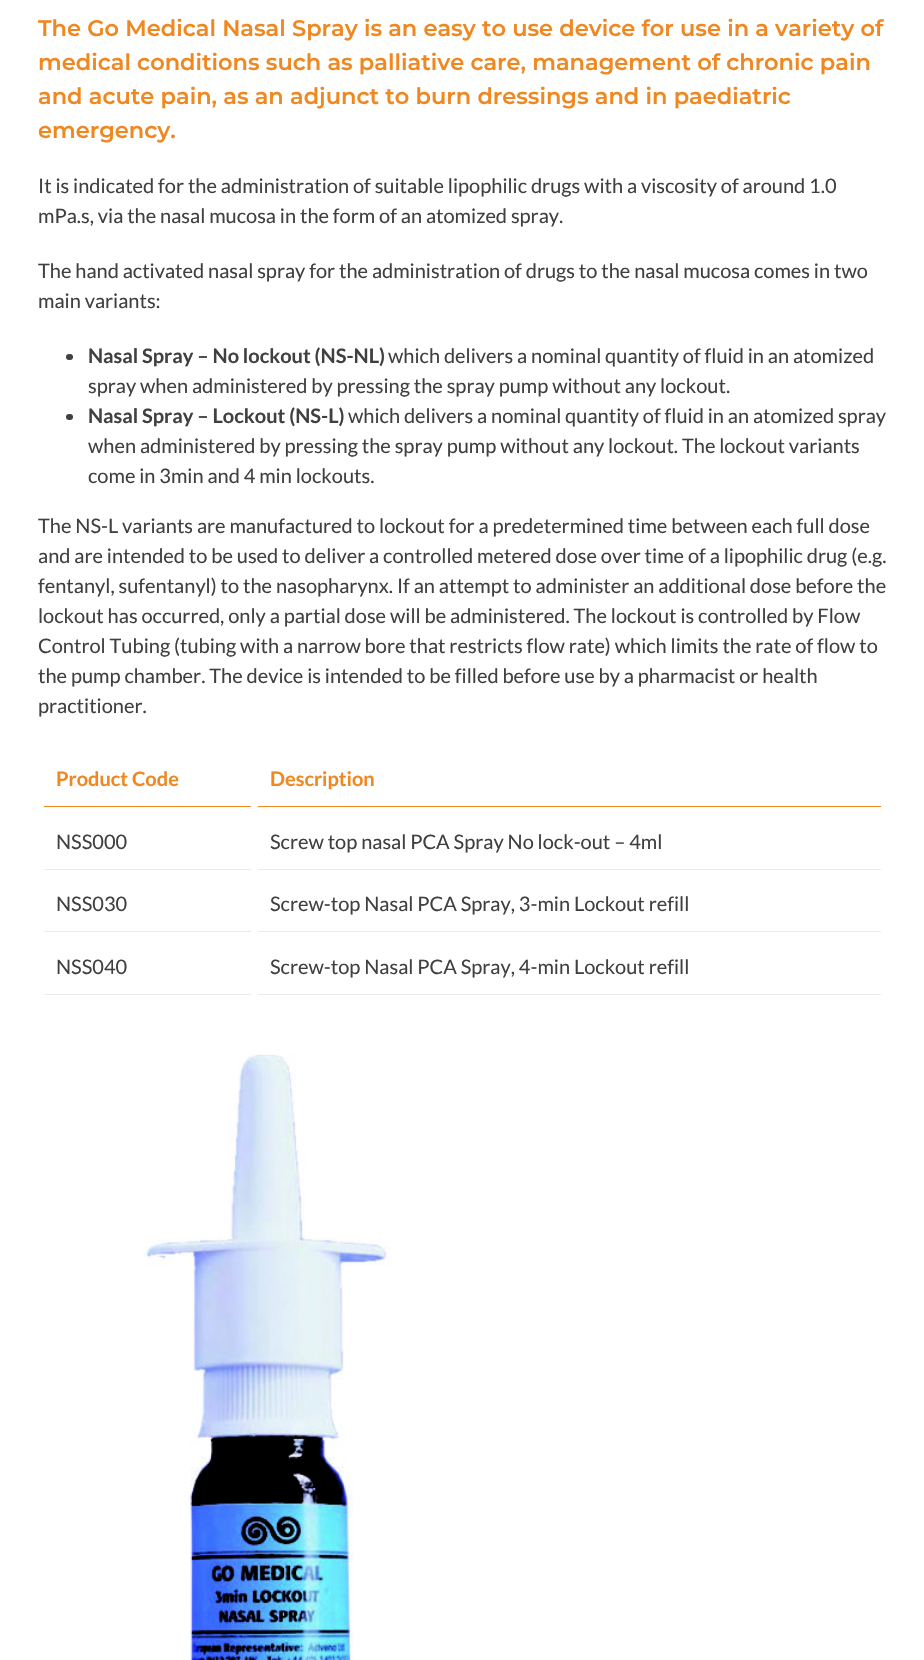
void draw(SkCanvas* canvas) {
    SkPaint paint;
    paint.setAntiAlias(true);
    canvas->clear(0xFFFFFFFF);
    SkFont font1(fontMgr->matchFamilyStyle("Montserrat", SkFontStyle(100, SkFontStyle::kNormal_Width, SkFontStyle::kUpright_Slant)), 22.5f);
    font1.setSubpixel(true);
    paint.setColor(0xFFF08821);
    canvas->drawString("The Go Medical Nasal Spray is an easy to use device for use in a variety of", 38, 36, font1, paint);
    canvas->drawString("medical conditions such as palliative care, management of chronic pain", 38, 70, font1, paint);
    canvas->drawString("and acute pain, as an adjunct to burn dressings and in paediatric", 38, 104, font1, paint);
    canvas->drawString("emergency.", 38, 138, font1, paint);
    SkFont font2(fontMgr->matchFamilyStyle("Lato", SkFontStyle::Normal()), 20);
    font2.setSubpixel(true);
    paint.setColor(0xFF3F4040);
    canvas->drawString("It is indicated for the administration of suitable lipophilic drugs with a viscosity of around 1.0", 38, 193, font2, paint);
    canvas->drawString("mPa.s, via the nasal mucosa in the form of an atomized spray.", 38, 223, font2, paint);
    canvas->drawString("The hand activated nasal spray for the administration of drugs to the nasal mucosa comes in two", 38, 278, font2, paint);
    canvas->drawString("main variants:", 38, 308, font2, paint);
    canvas->drawRoundRect(SkRect::MakeXYWH(66, 354, 7, 6), 3, 3, paint);
    SkFont font3(fontMgr->matchFamilyStyle("Lato", SkFontStyle::Bold()), 20);
    font3.setSubpixel(true);
    canvas->drawString("Nasal Spray – No lockout (NS-NL)", 88, 363, font3, paint);
    canvas->drawString("which delivers a nominal quantity of fluid in an atomized", 388, 363, font2, paint);
    canvas->drawString("spray when administered by pressing the spray pump without any lockout.", 88, 393, font2, paint);
    canvas->drawRoundRect(SkRect::MakeXYWH(66, 414, 7, 6), 3, 3, paint);
    canvas->drawString("Nasal Spray – Lockout (NS-L)", 88, 423, font3, paint);
    canvas->drawString("which delivers a nominal quantity of fluid in an atomized spray", 348, 423, font2, paint);
    canvas->drawString("when administered by pressing the spray pump without any lockout. The lockout variants", 88, 453, font2, paint);
    canvas->drawString("come in 3min and 4 min lockouts.", 88, 483, font2, paint);
    canvas->drawString("The NS-L variants are manufactured to lockout for a predetermined time between each full dose", 38, 533, font2, paint);
    canvas->drawString("and are intended to be used to deliver a controlled metered dose over time of a lipophilic drug (e.g.", 38, 563, font2, paint);
    canvas->drawString("fentanyl, sufentanyl) to the nasopharynx. If an attempt to administer an additional dose before the", 38, 593, font2, paint);
    canvas->drawString("lockout has occurred, only a partial dose will be administered. The lockout is controlled by Flow", 38, 623, font2, paint);
    canvas->drawString("Control Tubing (tubing with a narrow bore that restricts flow rate) which limits the rate of flow to", 38, 653, font2, paint);
    canvas->drawString("the pump chamber. The device is intended to be filled before use by a pharmacist or health", 38, 683, font2, paint);
    canvas->drawString("practitioner.", 38, 713, font2, paint);
    paint.setColor(0xFFF08821);
    canvas->drawRect(SkRect::MakeXYWH(44, 806, 207, 1), paint);
    canvas->drawString("Product Code", 56, 786, font3, paint);
    canvas->drawRect(SkRect::MakeXYWH(258, 806, 623, 1), paint);
    canvas->drawString("Description", 270, 786, font3, paint);
    paint.setColor(0xFFEBEBEB);
    canvas->drawRect(SkRect::MakeXYWH(44, 869, 207, 1), paint);
    paint.setColor(0xFF3F4040);
    canvas->drawString("NSS000", 56, 849, font2, paint);
    paint.setColor(0xFFEBEBEB);
    canvas->drawRect(SkRect::MakeXYWH(258, 869, 623, 1), paint);
    paint.setColor(0xFF3F4040);
    canvas->drawString("Screw top nasal PCA Spray No lock-out – 4ml", 270, 849, font2, paint);
    paint.setColor(0xFFEBEBEB);
    canvas->drawRect(SkRect::MakeXYWH(44, 931, 207, 1), paint);
    paint.setColor(0xFF3F4040);
    canvas->drawString("NSS030", 56, 911, font2, paint);
    paint.setColor(0xFFEBEBEB);
    canvas->drawRect(SkRect::MakeXYWH(258, 931, 623, 1), paint);
    paint.setColor(0xFF3F4040);
    canvas->drawString("Screw-top Nasal PCA Spray, 3-min Lockout refill", 270, 911, font2, paint);
    paint.setColor(0xFFEBEBEB);
    canvas->drawRect(SkRect::MakeXYWH(44, 994, 207, 1), paint);
    paint.setColor(0xFF3F4040);
    canvas->drawString("NSS040", 56, 974, font2, paint);
    paint.setColor(0xFFEBEBEB);
    canvas->drawRect(SkRect::MakeXYWH(258, 994, 623, 1), paint);
    paint.setColor(0xFF3F4040);
    canvas->drawString("Screw-top Nasal PCA Spray, 4-min Lockout refill", 270, 974, font2, paint);
    canvas->drawImageRect(SkImages::DeferredFromEncodedData(SkData::MakeFromFileName("img1.png")), SkRect::MakeXYWH(143, 1054, 249, 606), SkSamplingOptions());
}
